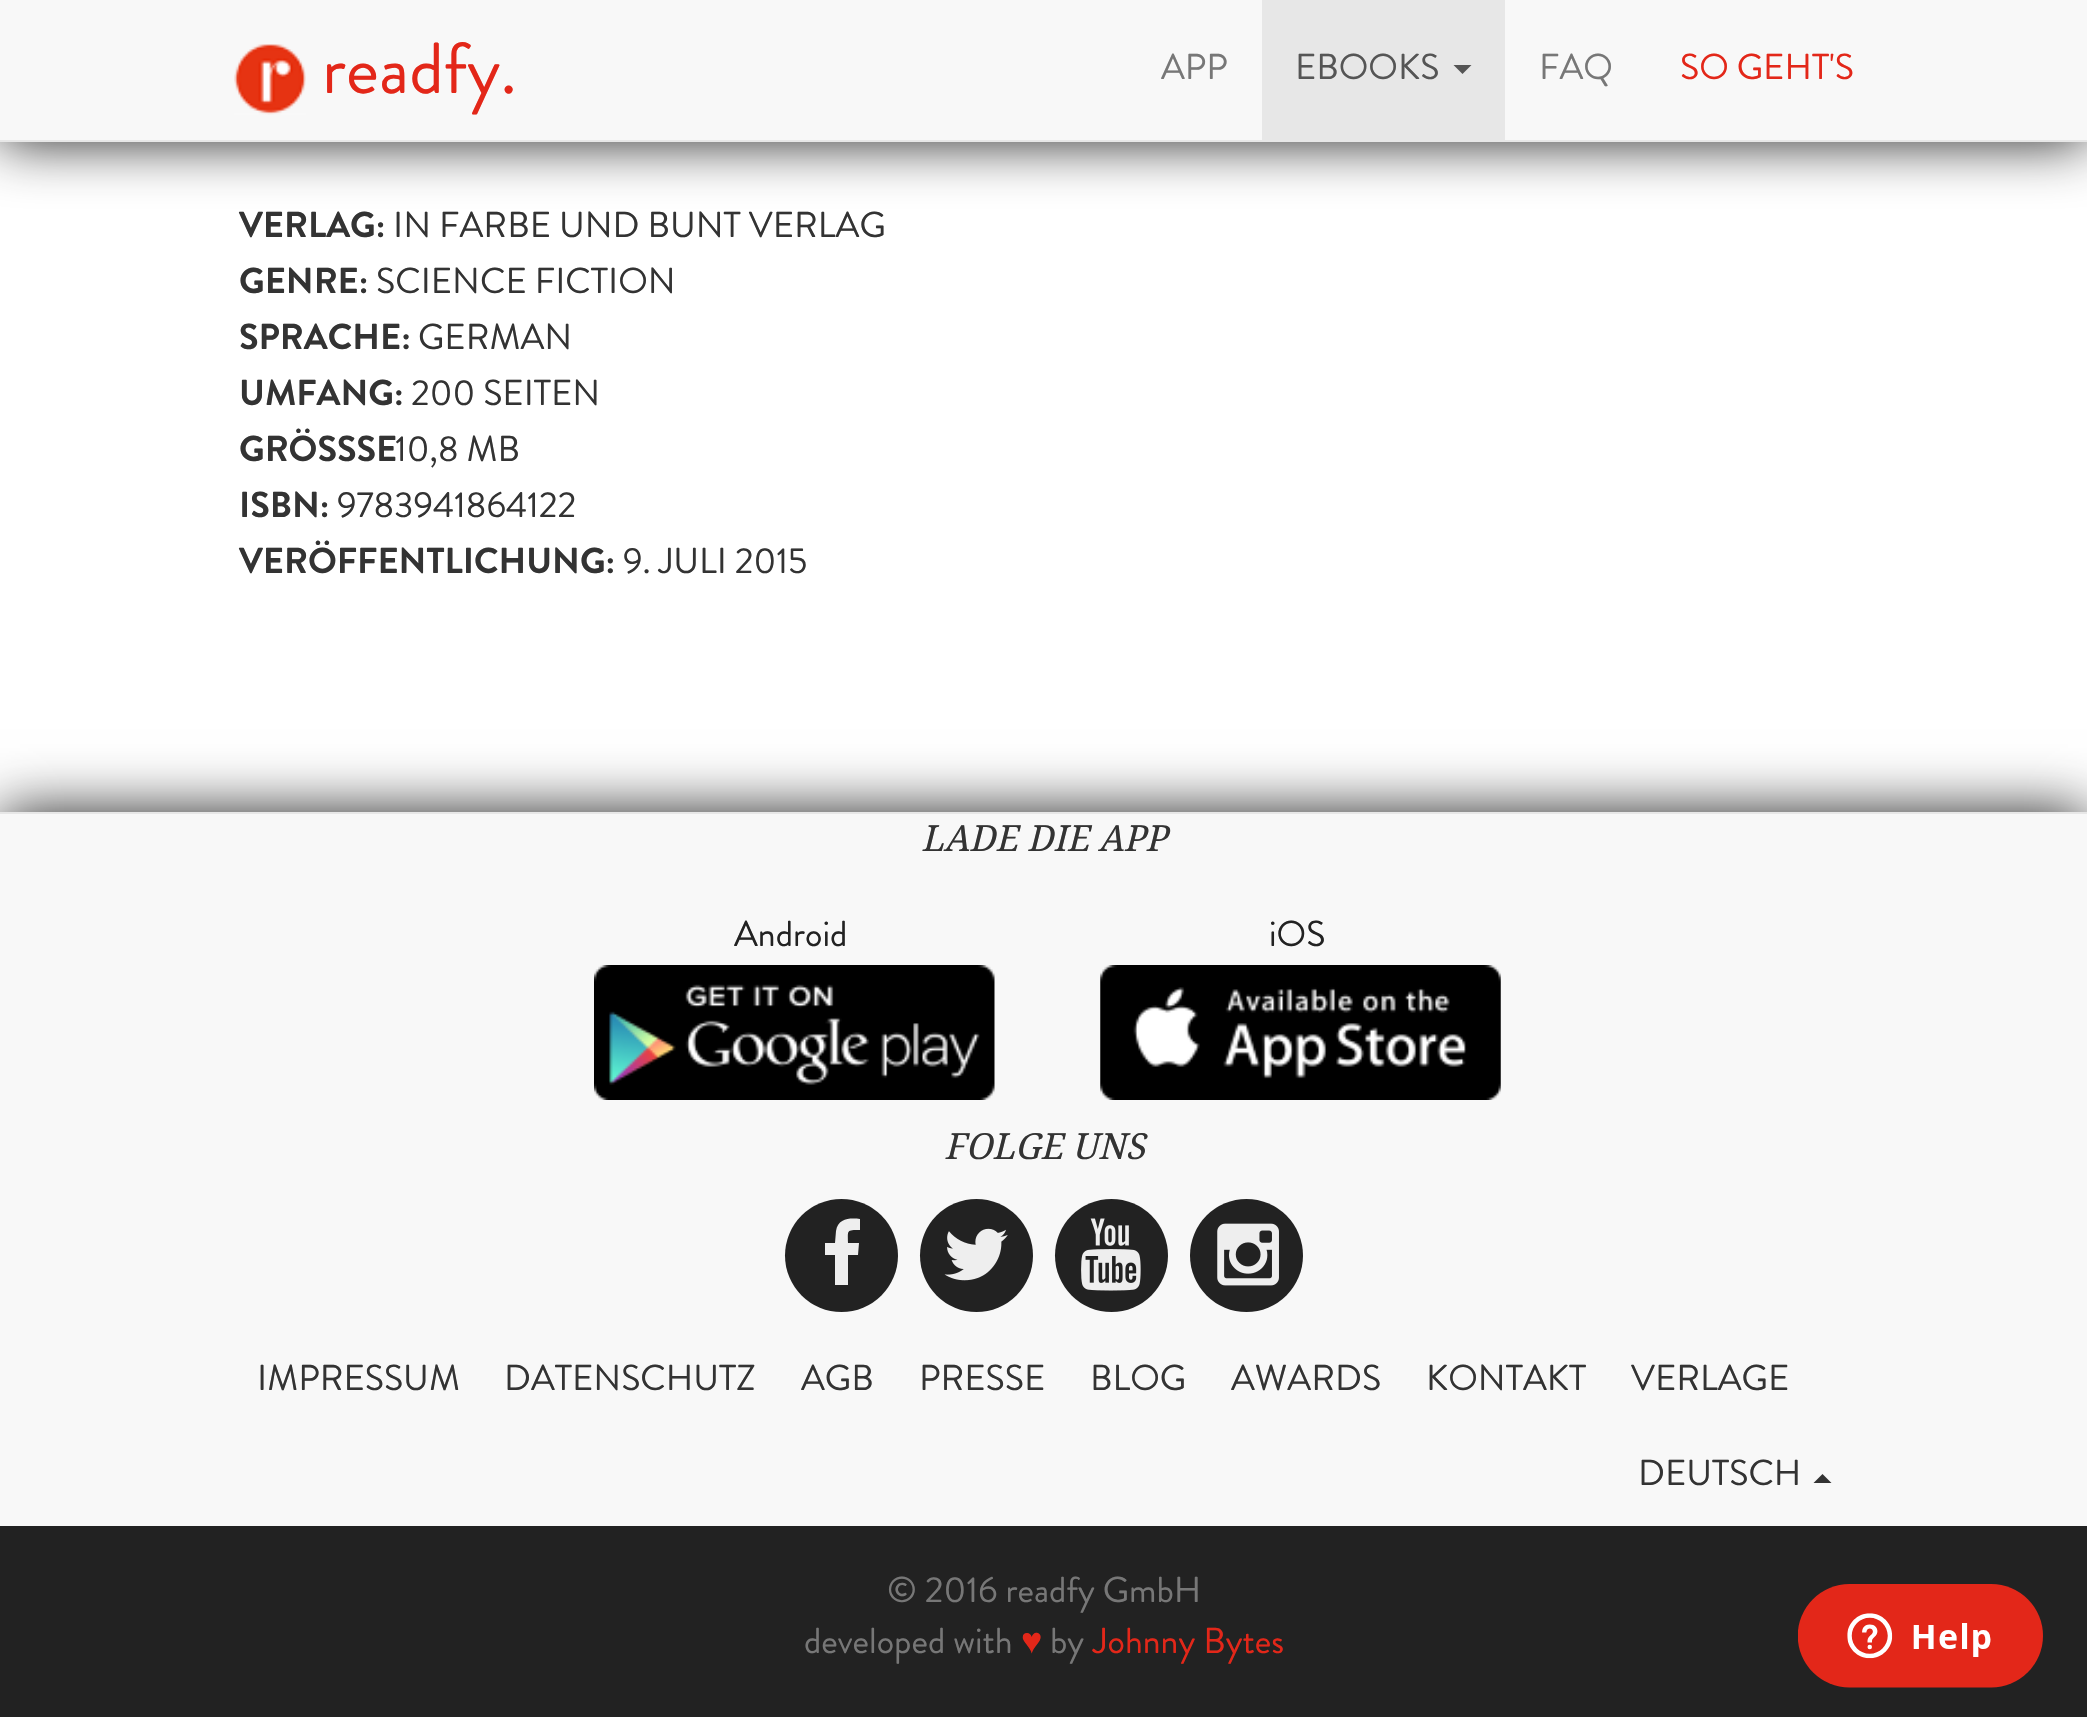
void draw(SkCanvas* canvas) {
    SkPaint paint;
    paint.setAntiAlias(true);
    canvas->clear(0xFFFFFFFF);
    paint.setColor(0xFF222222);
    paint.setMaskFilter(SkMaskFilter::MakeBlur(kNormal_SkBlurStyle, 28));
    canvas->drawRect(SkRect::MakeXYWH(0, 0, 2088, 142), paint);
    paint.setMaskFilter(nullptr);
    paint.setColor(0xFFF8F8F8);
    canvas->drawRect(SkRect::MakeXYWH(0, 0, 2087, 140), paint);
    paint.setColor(0xFFE7E7E7);
    canvas->drawRect(SkRect::MakeXYWH(0, 140, 2087, 2), paint);
    canvas->drawImageRect(SkImages::DeferredFromEncodedData(SkData::MakeFromFileName("img1.png")), SkRect::MakeXYWH(234, 44, 72, 71), SkSamplingOptions());
    SkFont font1(fontMgr->matchFamilyStyle("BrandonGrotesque", SkFontStyle::Normal()), 72);
    font1.setSubpixel(true);
    paint.setColor(0xFFE32719);
    canvas->drawString("readfy.", 322, 93, font1, paint);
    SkFont font2(fontMgr->matchFamilyStyle("BrandonGrotesque", SkFontStyle::Normal()), 36);
    font2.setSubpixel(true);
    paint.setColor(0xFF777777);
    canvas->drawString("APP", 1161, 79, font2, paint);
    paint.setColor(0xFFE7E7E7);
    canvas->drawRect(SkRect::MakeXYWH(1262, 0, 243, 140), paint);
    paint.setColor(0xFF555555);
    canvas->drawString("EBOOKS", 1295, 79, font2, paint);
    canvas->drawPath(SkPathBuilder().moveTo(1453.5f, 65).lineTo(1471.5f, 65).lineTo(1462.5f, 74).close().detach(), paint);
    paint.setColor(0xFF777777);
    canvas->drawString("FAQ", 1539, 79, font2, paint);
    paint.setColor(0xFFE32719);
    canvas->drawString("SO GEHT'S", 1680, 79, font2, paint);
    SkFont font3(fontMgr->matchFamilyStyle("BrandonGrotesque", SkFontStyle::Bold()), 36);
    font3.setSubpixel(true);
    paint.setColor(0xFF333333);
    canvas->drawString("VERLAG:", 239, 237, font3, paint);
    canvas->drawString("IN FARBE UND BUNT VERLAG", 393, 237, font2, paint);
    canvas->drawString("GENRE:", 239, 293, font3, paint);
    canvas->drawString("SCIENCE FICTION", 376, 293, font2, paint);
    canvas->drawString("SPRACHE:", 239, 349, font3, paint);
    canvas->drawString("GERMAN", 418, 349, font2, paint);
    canvas->drawString("UMFANG:", 239, 405, font3, paint);
    canvas->drawString("200 SEITEN", 411, 405, font2, paint);
    canvas->drawString("GRÖSSSE", 239, 461, font3, paint);
    canvas->drawString("10,8 MB", 395, 461, font2, paint);
    canvas->drawString("ISBN:", 239, 517, font3, paint);
    canvas->drawString("9783941864122", 337, 517, font2, paint);
    canvas->drawString("VERÖFFENTLICHUNG:", 239, 573, font3, paint);
    canvas->drawString("9. JULI 2015", 623, 573, font2, paint);
    paint.setColor(0xFF222222);
    paint.setMaskFilter(SkMaskFilter::MakeBlur(kNormal_SkBlurStyle, 28));
    canvas->drawRect(SkRect::MakeXYWH(0, 812, 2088, 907), paint);
    paint.setMaskFilter(nullptr);
    paint.setColor(0xFFF8F8F8);
    canvas->drawRect(SkRect::MakeXYWH(0, 814, 2087, 712), paint);
    paint.setColor(0xFFE7E7E7);
    canvas->drawRect(SkRect::MakeXYWH(0, 812, 2087, 2), paint);
    SkFont font4(fontMgr->matchFamilyStyle("Droid Serif", SkFontStyle::Italic()), 36);
    font4.setSubpixel(true);
    paint.setColor(0xFF333333);
    canvas->drawString("LADE DIE APP", 921, 851, font4, paint);
    paint.setColor(0xFF222222);
    canvas->drawString("Android", 734, 946, font2, paint);
    canvas->drawImageRect(SkImages::DeferredFromEncodedData(SkData::MakeFromFileName("img2.png")), SkRect::MakeXYWH(594, 965, 401, 135), SkSamplingOptions());
    canvas->drawString("iOS", 1269, 946, font2, paint);
    canvas->drawImageRect(SkImages::DeferredFromEncodedData(SkData::MakeFromFileName("img3.png")), SkRect::MakeXYWH(1100, 965, 401, 135), SkSamplingOptions());
    paint.setColor(0xFF333333);
    canvas->drawString("FOLGE UNS", 944, 1159, font4, paint);
    paint.setColor(0xFF222222);
    canvas->drawCircle(841.5f, 1255.5f, 56.5f, paint);
    paint.setColor(0xFFEEEEEE);
    canvas->drawPath(SkPathBuilder().moveTo(860, 1219).lineTo(860, 1230).cubicTo(846, 1230, 848, 1230, 848, 1243).lineTo(859, 1243).lineTo(858, 1255).lineTo(848, 1255).lineTo(848, 1285).lineTo(835, 1285).lineTo(835, 1255).lineTo(825, 1255).lineTo(825, 1243).lineTo(835, 1243).lineTo(836, 1231).cubicTo(838, 1218, 850, 1218, 860, 1219).close().detach(), paint);
    paint.setColor(0xFF222222);
    canvas->drawCircle(976.5f, 1255.5f, 56.5f, paint);
    canvas->drawImageRect(SkImages::DeferredFromEncodedData(SkData::MakeFromFileName("img4.png")), SkRect::MakeXYWH(944, 1228, 64, 53), SkSamplingOptions());
    canvas->drawCircle(1111.5f, 1255.5f, 56.5f, paint);
    canvas->drawImageRect(SkImages::DeferredFromEncodedData(SkData::MakeFromFileName("img5.png")), SkRect::MakeXYWH(1081, 1218, 60, 73), SkSamplingOptions());
    canvas->drawCircle(1246.5f, 1255.5f, 56.5f, paint);
    canvas->drawImageRect(SkImages::DeferredFromEncodedData(SkData::MakeFromFileName("img6.png")), SkRect::MakeXYWH(1217, 1223, 62, 63), SkSamplingOptions());
    paint.setColor(0xFF333333);
    canvas->drawString("IMPRESSUM", 257, 1390, font2, paint);
    canvas->drawString("DATENSCHUTZ", 504, 1390, font2, paint);
    canvas->drawString("AGB", 801, 1390, font2, paint);
    canvas->drawString("PRESSE", 919, 1390, font2, paint);
    canvas->drawString("BLOG", 1090, 1390, font2, paint);
    canvas->drawString("AWARDS", 1231, 1390, font2, paint);
    canvas->drawString("KONTAKT", 1426, 1390, font2, paint);
    canvas->drawString("VERLAGE", 1631, 1390, font2, paint);
    canvas->drawString("DEUTSCH", 1638, 1485, font2, paint);
    canvas->drawPath(SkPathBuilder().moveTo(1831.5f, 1483).lineTo(1813.5f, 1483).lineTo(1822.5f, 1474).close().detach(), paint);
    paint.setColor(0xFF222222);
    canvas->drawRect(SkRect::MakeXYWH(0, 1526, 2087, 191), paint);
    paint.setColor(0xFF777777);
    canvas->drawString("© 2016 readfy GmbH", 887, 1602, font2, paint);
    canvas->drawString("developed with", 804, 1653, font2, paint);
    SkFont font5(fontMgr->matchFamilyStyle("Liberation Sans", SkFontStyle::Normal()), 36);
    font5.setSubpixel(true);
    paint.setColor(0xFFE32719);
    canvas->drawString("♥", 1021, 1653, font5, paint);
    paint.setColor(0xFF777777);
    canvas->drawString("by", 1050, 1653, font2, paint);
    paint.setColor(0xFFE32719);
    canvas->drawString("Johnny Bytes", 1093, 1653, font2, paint);
    canvas->drawImageRect(SkImages::DeferredFromEncodedData(SkData::MakeFromFileName("img7.png")), SkRect::MakeXYWH(1798, 1584, 245, 104), SkSamplingOptions());
}
